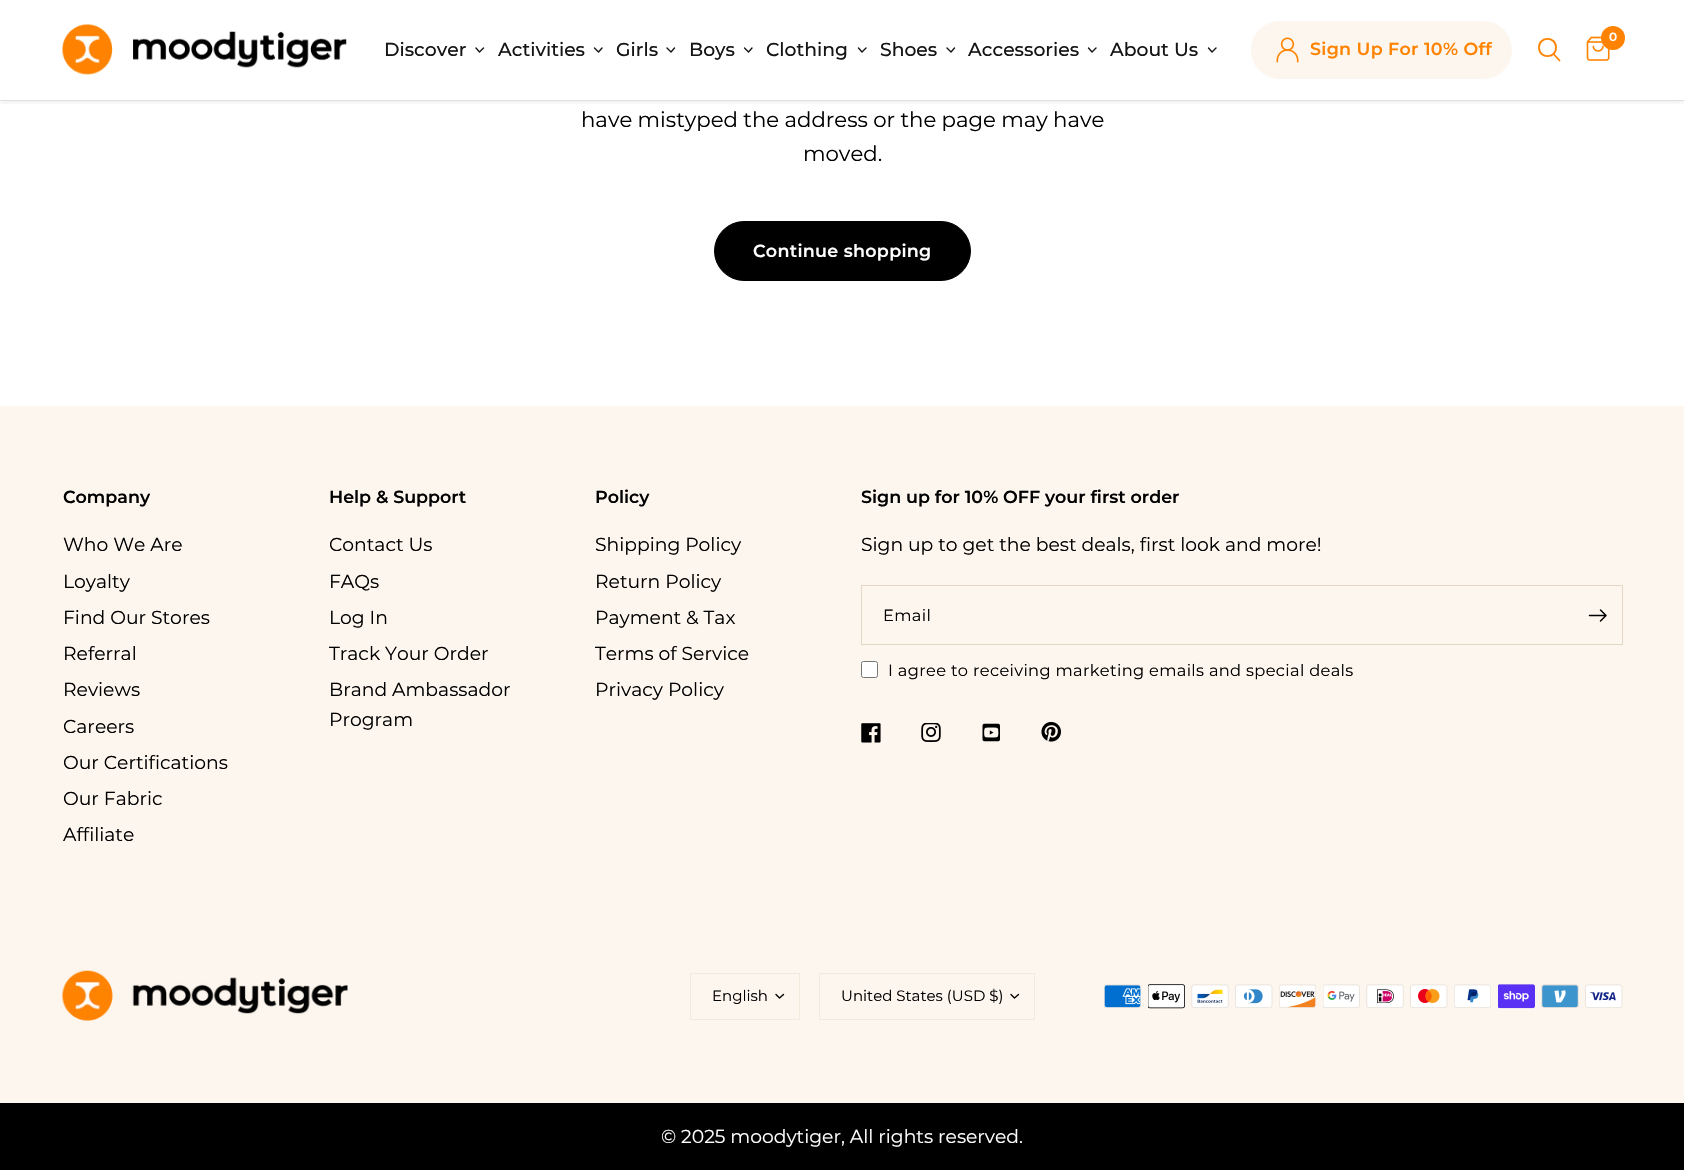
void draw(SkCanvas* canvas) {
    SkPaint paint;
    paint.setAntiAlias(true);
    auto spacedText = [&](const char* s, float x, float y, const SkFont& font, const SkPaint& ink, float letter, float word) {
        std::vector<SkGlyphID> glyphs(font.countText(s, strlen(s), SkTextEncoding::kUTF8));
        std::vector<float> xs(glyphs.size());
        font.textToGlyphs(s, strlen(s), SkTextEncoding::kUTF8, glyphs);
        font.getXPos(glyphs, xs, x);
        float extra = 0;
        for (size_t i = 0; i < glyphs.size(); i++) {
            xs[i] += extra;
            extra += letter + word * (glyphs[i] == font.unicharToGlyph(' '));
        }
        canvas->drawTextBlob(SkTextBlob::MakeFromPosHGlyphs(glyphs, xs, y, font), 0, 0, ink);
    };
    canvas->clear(0xFFFFFFFF);
    paint.setColor(0xFFEAEAEA);
    canvas->drawRect(SkRect::MakeXYWH(0, 100, 1684, 1), paint);
    canvas->save();
    canvas->clipRect(SkRect::MakeXYWH(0, 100, 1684, 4));
    paint.setColor(0x0F000000);
    paint.setMaskFilter(SkMaskFilter::MakeBlur(kNormal_SkBlurStyle, 3));
    canvas->drawRect(SkRect::MakeXYWH(0, 3, 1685, 100), paint);
    paint.setMaskFilter(nullptr);
    canvas->restore();
    canvas->drawImageRect(SkImages::DeferredFromEncodedData(SkData::MakeFromFileName("img1.png")), SkRect::MakeXYWH(62, 24, 285, 51), SkSamplingOptions());
    SkFont font1(fontMgr->matchFamilyStyle("Montserrat", SkFontStyle(500, SkFontStyle::kNormal_Width, SkFontStyle::kUpright_Slant)), 18.75f);
    font1.setSubpixel(true);
    paint.setColor(0xFF151515);
    canvas->drawString("Discover", 384, 56, font1, paint);
    paint.setStyle(SkPaint::kStroke_Style);
    paint.setStrokeWidth(1.4f);
    paint.setStrokeCap(SkPaint::kRound_Cap);
    paint.setStrokeJoin(SkPaint::kRound_Join);
    canvas->drawPath(SkPathBuilder().moveTo(483.5f, 48).lineTo(479.5f, 52).lineTo(476, 48).detach(), paint);
    paint.setStyle(SkPaint::kFill_Style);
    canvas->drawString("Activities", 498, 56, font1, paint);
    paint.setStyle(SkPaint::kStroke_Style);
    canvas->drawPath(SkPathBuilder().moveTo(602, 48).lineTo(598.5f, 52).lineTo(594.5f, 48).detach(), paint);
    paint.setStyle(SkPaint::kFill_Style);
    canvas->drawString("Girls", 616, 56, font1, paint);
    paint.setStyle(SkPaint::kStroke_Style);
    canvas->drawPath(SkPathBuilder().moveTo(674.5f, 48).lineTo(671, 52).lineTo(667, 48).detach(), paint);
    paint.setStyle(SkPaint::kFill_Style);
    canvas->drawString("Boys", 689, 56, font1, paint);
    paint.setStyle(SkPaint::kStroke_Style);
    canvas->drawPath(SkPathBuilder().moveTo(752, 48).lineTo(748.5f, 52).lineTo(744.5f, 48).detach(), paint);
    paint.setStyle(SkPaint::kFill_Style);
    canvas->drawString("Clothing", 766, 56, font1, paint);
    paint.setStyle(SkPaint::kStroke_Style);
    canvas->drawPath(SkPathBuilder().moveTo(866, 48).lineTo(862, 52).lineTo(858.5f, 48).detach(), paint);
    paint.setStyle(SkPaint::kFill_Style);
    canvas->drawString("Shoes", 880, 56, font1, paint);
    paint.setStyle(SkPaint::kStroke_Style);
    canvas->drawPath(SkPathBuilder().moveTo(954.5f, 48).lineTo(951, 52).lineTo(947, 48).detach(), paint);
    paint.setStyle(SkPaint::kFill_Style);
    canvas->drawString("Accessories", 968, 56, font1, paint);
    paint.setStyle(SkPaint::kStroke_Style);
    canvas->drawPath(SkPathBuilder().moveTo(1096, 48).lineTo(1092, 52).lineTo(1088.5f, 48).detach(), paint);
    paint.setStyle(SkPaint::kFill_Style);
    canvas->drawString("About Us", 1110, 56, font1, paint);
    paint.setStyle(SkPaint::kStroke_Style);
    canvas->drawPath(SkPathBuilder().moveTo(1216, 48).lineTo(1212, 52).lineTo(1208.5f, 48).detach(), paint);
    canvas->drawImageRect(SkImages::DeferredFromEncodedData(SkData::MakeFromFileName("img2.png")), SkRect::MakeXYWH(1586, 36, 24, 25), SkSamplingOptions());
    paint.setStyle(SkPaint::kFill_Style);
    paint.setColor(0xFFFF8300);
    canvas->drawCircle(1613, 38, 12, paint);
    SkFont font2(fontMgr->matchFamilyStyle("Montserrat", SkFontStyle(600, SkFontStyle::kNormal_Width, SkFontStyle::kUpright_Slant)), 12);
    font2.setSubpixel(true);
    paint.setColor(0xFFFFFFFF);
    canvas->drawString("0", 1609, 41, font2, paint);
    paint.setColor(0xFFFDF6EE);
    canvas->drawRoundRect(SkRect::MakeXYWH(1250.5f, 20.5f, 262, 59), 29.5f, 29.5f, paint);
    paint.setStyle(SkPaint::kStroke_Style);
    paint.setStrokeWidth(1);
    paint.setStrokeCap(SkPaint::kButt_Cap);
    paint.setStrokeJoin(SkPaint::kMiter_Join);
    paint.setColor(0xFFFFFFFF);
    canvas->drawRoundRect(SkRect::MakeXYWH(1250.5f, 20.5f, 262, 59), 29.5f, 29.5f, paint);
    canvas->drawImageRect(SkImages::DeferredFromEncodedData(SkData::MakeFromFileName("img3.png")), SkRect::MakeXYWH(1276, 37, 23, 26), SkSamplingOptions());
    SkFont font3(fontMgr->matchFamilyStyle("Montserrat", SkFontStyle(600, SkFontStyle::kNormal_Width, SkFontStyle::kUpright_Slant)), 17.5f);
    font3.setSubpixel(true);
    paint.setStyle(SkPaint::kFill_Style);
    paint.setColor(0xFFFF8300);
    spacedText("Sign Up For 10% Off", 1310, 55, font3, paint, 0.3f, 0);
    paint.setStyle(SkPaint::kStroke_Style);
    paint.setStrokeWidth(1.8f);
    paint.setStrokeCap(SkPaint::kRound_Cap);
    paint.setStrokeJoin(SkPaint::kRound_Join);
    canvas->drawPath(SkPathBuilder().moveTo(1554, 54.5f).lineTo(1559.5f, 60.5f).moveTo(1556, 47.5f).cubicTo(1556, 59, 1539, 59, 1539, 47.5f).cubicTo(1539, 36, 1556, 36, 1556, 47.5f).close().detach(), paint);
    SkFont font4(fontMgr->matchFamilyStyle("Montserrat", SkFontStyle::Normal()), 21.25f);
    font4.setSubpixel(true);
    paint.setStyle(SkPaint::kFill_Style);
    paint.setColor(0xFF000000);
    spacedText("have mistyped the address or the page may have", 581, 127, font4, paint, 0, -0.25f);
    canvas->drawString("moved.", 803, 161, font4, paint);
    canvas->drawRoundRect(SkRect::MakeXYWH(714.5f, 221.5f, 256, 59), 29.5f, 29.5f, paint);
    paint.setStyle(SkPaint::kStroke_Style);
    paint.setStrokeWidth(1);
    paint.setStrokeCap(SkPaint::kButt_Cap);
    paint.setStrokeJoin(SkPaint::kMiter_Join);
    canvas->drawRoundRect(SkRect::MakeXYWH(714.5f, 221.5f, 256, 59), 29.5f, 29.5f, paint);
    paint.setStyle(SkPaint::kFill_Style);
    paint.setColor(0xFFFFFFFF);
    spacedText("Continue shopping", 753, 257, font3, paint, 0.3f, 0);
    paint.setColor(0xFFFDF6EE);
    canvas->drawRect(SkRect::MakeXYWH(0, 406, 1684, 697), paint);
    paint.setColor(0xFF000000);
    canvas->drawString("Company", 63, 503, font3, paint);
    SkFont font5(fontMgr->matchFamilyStyle("Montserrat", SkFontStyle::Normal()), 18.75f);
    font5.setSubpixel(true);
    canvas->drawString("Who We Are", 63, 551, font5, paint);
    canvas->drawString("Loyalty", 63, 588, font5, paint);
    canvas->drawString("Find Our Stores", 63, 624, font5, paint);
    canvas->drawString("Referral", 63, 660, font5, paint);
    canvas->drawString("Reviews", 63, 696, font5, paint);
    canvas->drawString("Careers", 63, 733, font5, paint);
    canvas->drawString("Our Certifications", 63, 769, font5, paint);
    canvas->drawString("Our Fabric", 63, 805, font5, paint);
    canvas->drawString("Affiliate", 63, 841, font5, paint);
    canvas->drawString("Help & Support", 329, 503, font3, paint);
    canvas->drawString("Contact Us", 329, 551, font5, paint);
    canvas->drawString("FAQs", 329, 588, font5, paint);
    canvas->drawString("Log In", 329, 624, font5, paint);
    canvas->drawString("Track Your Order", 329, 660, font5, paint);
    canvas->drawString("Brand Ambassador", 329, 696, font5, paint);
    canvas->drawString("Program", 329, 726, font5, paint);
    canvas->drawString("Policy", 595, 503, font3, paint);
    canvas->drawString("Shipping Policy", 595, 551, font5, paint);
    canvas->drawString("Return Policy", 595, 588, font5, paint);
    canvas->drawString("Payment & Tax", 595, 624, font5, paint);
    canvas->drawString("Terms of Service", 595, 660, font5, paint);
    canvas->drawString("Privacy Policy", 595, 696, font5, paint);
    canvas->drawString("Sign up for 10% OFF your first order", 861, 503, font3, paint);
    canvas->drawString("Sign up to get the best deals, first look and more!", 861, 551, font5, paint);
    paint.setStyle(SkPaint::kStroke_Style);
    paint.setColor(0xFFE3D6C3);
    canvas->drawRect(SkRect::MakeXYWH(861.5f, 585.5f, 761, 59), paint);
    SkFont font6(fontMgr->matchFamilyStyle("Montserrat", SkFontStyle::Normal()), 16.25f);
    font6.setSubpixel(true);
    paint.setStyle(SkPaint::kFill_Style);
    paint.setColor(0xFF000000);
    spacedText("Email", 883, 621, font6, paint, 0.33f, 0);
    paint.setStyle(SkPaint::kStroke_Style);
    paint.setStrokeWidth(1.5f);
    paint.setStrokeCap(SkPaint::kRound_Cap);
    paint.setStrokeJoin(SkPaint::kRound_Join);
    canvas->drawPath(SkPathBuilder().moveTo(1589.5f, 615.5f).lineTo(1604.5f, 615.5f).moveTo(1600.5f, 610).lineTo(1606, 615.5f).lineTo(1600.5f, 621).detach(), paint);
    paint.setStyle(SkPaint::kFill_Style);
    paint.setColor(0xFFFFFFFF);
    canvas->drawRoundRect(SkRect::MakeXYWH(861.5f, 661.5f, 16, 16), 2, 2, paint);
    paint.setStyle(SkPaint::kStroke_Style);
    paint.setStrokeWidth(1);
    paint.setStrokeCap(SkPaint::kButt_Cap);
    paint.setStrokeJoin(SkPaint::kMiter_Join);
    paint.setColor(0xFF767676);
    canvas->drawRoundRect(SkRect::MakeXYWH(861.5f, 661.5f, 16, 16), 2, 2, paint);
    paint.setStyle(SkPaint::kFill_Style);
    paint.setColor(0xFF000000);
    spacedText("I agree to receiving marketing emails and special deals", 888, 676, font6, paint, 0.33f, 0);
    canvas->drawImageRect(SkImages::DeferredFromEncodedData(SkData::MakeFromFileName("img4.png")), SkRect::MakeXYWH(861, 723, 20, 20), SkSamplingOptions());
    canvas->drawImageRect(SkImages::DeferredFromEncodedData(SkData::MakeFromFileName("img5.png")), SkRect::MakeXYWH(921, 723, 20, 19), SkSamplingOptions());
    canvas->drawImageRect(SkImages::DeferredFromEncodedData(SkData::MakeFromFileName("img6.png")), SkRect::MakeXYWH(982, 723, 18, 19), SkSamplingOptions());
    canvas->drawImageRect(SkImages::DeferredFromEncodedData(SkData::MakeFromFileName("img7.png")), SkRect::MakeXYWH(1041, 721, 20, 21), SkSamplingOptions());
    canvas->drawImageRect(SkImages::DeferredFromEncodedData(SkData::MakeFromFileName("img8.png")), SkRect::MakeXYWH(62, 970, 286, 51), SkSamplingOptions());
    paint.setStyle(SkPaint::kStroke_Style);
    paint.setColor(0xFFF3E9DD);
    canvas->drawRect(SkRect::MakeXYWH(690.5f, 973.5f, 109, 46), paint);
    SkFont font7(fontMgr->matchFamilyStyle("Montserrat", SkFontStyle::Normal()), 15);
    font7.setSubpixel(true);
    paint.setStyle(SkPaint::kFill_Style);
    paint.setColor(0xFF000000);
    canvas->drawString("English", 712, 1001, font7, paint);
    paint.setStyle(SkPaint::kStroke_Style);
    paint.setStrokeWidth(1.4f);
    paint.setStrokeCap(SkPaint::kRound_Cap);
    paint.setStrokeJoin(SkPaint::kRound_Join);
    canvas->drawPath(SkPathBuilder().moveTo(783.5f, 994.5f).lineTo(779.5f, 998).lineTo(776, 994.5f).detach(), paint);
    paint.setStrokeWidth(1);
    paint.setStrokeCap(SkPaint::kButt_Cap);
    paint.setStrokeJoin(SkPaint::kMiter_Join);
    paint.setColor(0xFFF3E9DD);
    canvas->drawRect(SkRect::MakeXYWH(819.5f, 973.5f, 215, 46), paint);
    paint.setStyle(SkPaint::kFill_Style);
    paint.setColor(0xFF000000);
    canvas->drawString("United States (USD $)", 841, 1001, font7, paint);
    paint.setStyle(SkPaint::kStroke_Style);
    paint.setStrokeWidth(1.4f);
    paint.setStrokeCap(SkPaint::kRound_Cap);
    paint.setStrokeJoin(SkPaint::kRound_Join);
    canvas->drawPath(SkPathBuilder().moveTo(1018.5f, 994.5f).lineTo(1014.5f, 998).lineTo(1011, 994.5f).detach(), paint);
    canvas->drawImageRect(SkImages::DeferredFromEncodedData(SkData::MakeFromFileName("img9.png")), SkRect::MakeXYWH(1104, 984, 37, 24), SkSamplingOptions());
    canvas->drawImageRect(SkImages::DeferredFromEncodedData(SkData::MakeFromFileName("img10.png")), SkRect::MakeXYWH(1148, 984, 37, 25), SkSamplingOptions());
    canvas->drawImageRect(SkImages::DeferredFromEncodedData(SkData::MakeFromFileName("img11.png")), SkRect::MakeXYWH(1191, 984, 38, 24), SkSamplingOptions());
    canvas->drawImageRect(SkImages::DeferredFromEncodedData(SkData::MakeFromFileName("img12.png")), SkRect::MakeXYWH(1235, 984, 38, 24), SkSamplingOptions());
    canvas->drawImageRect(SkImages::DeferredFromEncodedData(SkData::MakeFromFileName("img13.png")), SkRect::MakeXYWH(1279, 984, 37, 24), SkSamplingOptions());
    canvas->drawImageRect(SkImages::DeferredFromEncodedData(SkData::MakeFromFileName("img14.png")), SkRect::MakeXYWH(1323, 984, 37, 24), SkSamplingOptions());
    canvas->drawImageRect(SkImages::DeferredFromEncodedData(SkData::MakeFromFileName("img15.png")), SkRect::MakeXYWH(1366, 984, 38, 24), SkSamplingOptions());
    canvas->drawImageRect(SkImages::DeferredFromEncodedData(SkData::MakeFromFileName("img16.png")), SkRect::MakeXYWH(1410, 984, 38, 24), SkSamplingOptions());
    canvas->drawImageRect(SkImages::DeferredFromEncodedData(SkData::MakeFromFileName("img17.png")), SkRect::MakeXYWH(1454, 984, 37, 24), SkSamplingOptions());
    canvas->drawImageRect(SkImages::DeferredFromEncodedData(SkData::MakeFromFileName("img18.png")), SkRect::MakeXYWH(1498, 984, 37, 25), SkSamplingOptions());
    canvas->drawImageRect(SkImages::DeferredFromEncodedData(SkData::MakeFromFileName("img19.png")), SkRect::MakeXYWH(1541, 984, 38, 24), SkSamplingOptions());
    canvas->drawImageRect(SkImages::DeferredFromEncodedData(SkData::MakeFromFileName("img20.png")), SkRect::MakeXYWH(1585, 984, 38, 24), SkSamplingOptions());
    paint.setStyle(SkPaint::kFill_Style);
    canvas->drawRect(SkRect::MakeXYWH(0, 1103, 1684, 67), paint);
    paint.setColor(0xFFFFFFFF);
    canvas->drawString("© 2025 moodytiger, All rights reserved.", 661, 1143, font5, paint);
}
